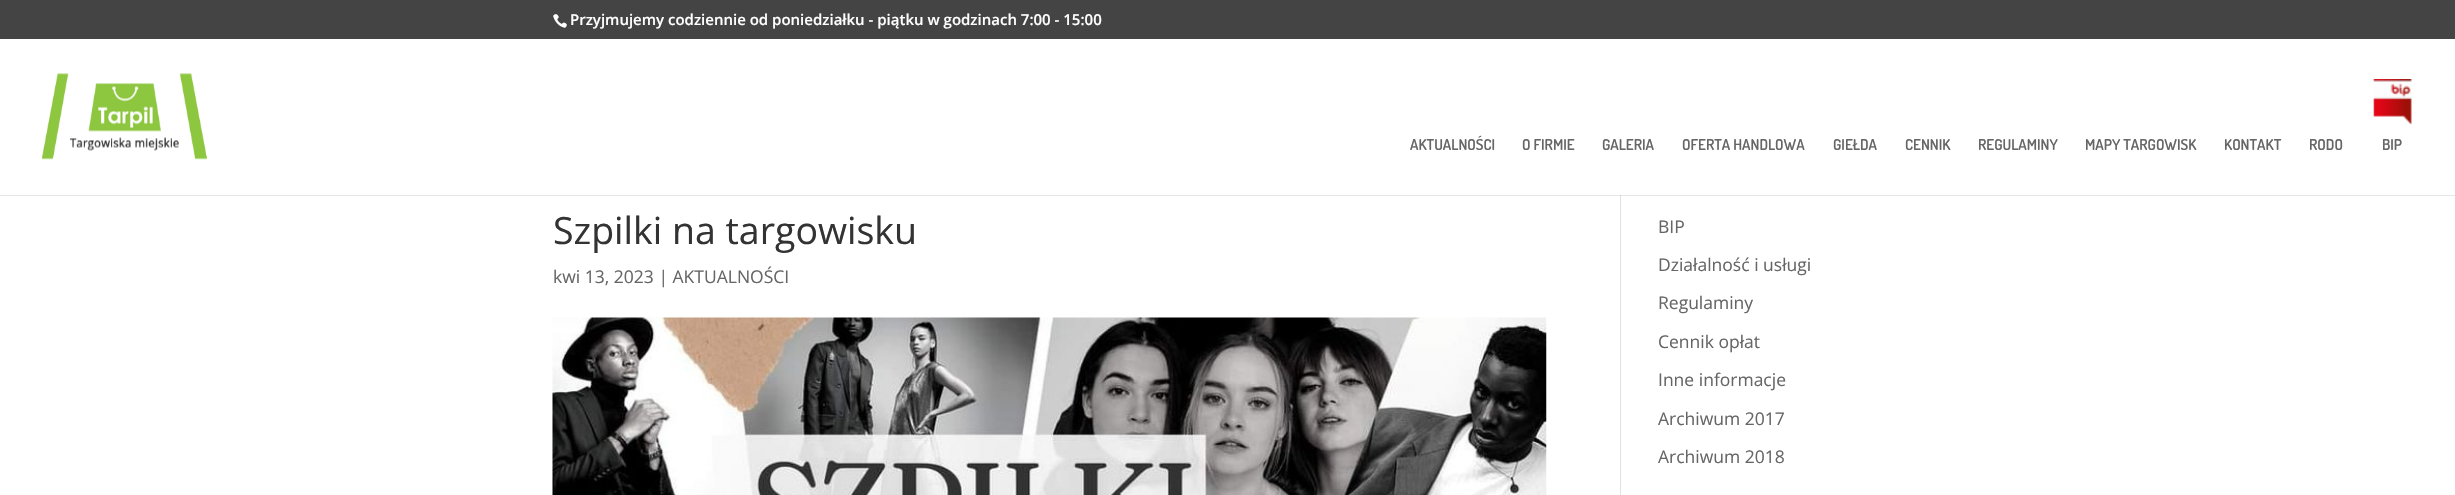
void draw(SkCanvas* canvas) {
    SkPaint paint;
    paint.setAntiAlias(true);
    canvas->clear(0xFFFFFFFF);
    paint.setColor(0xFFE6E6E6);
    canvas->drawRect(SkRect::MakeXYWH(0, 195, 2455, 1), paint);
    paint.setColor(0xFF444444);
    canvas->drawRect(SkRect::MakeXYWH(0, 0, 2455, 39), paint);
    canvas->drawImageRect(SkImages::DeferredFromEncodedData(SkData::MakeFromFileName("img1.png")), SkRect::MakeXYWH(553, 14, 14, 14), SkSamplingOptions());
    SkFont font1(fontMgr->matchFamilyStyle("Open Sans", SkFontStyle(600, SkFontStyle::kNormal_Width, SkFontStyle::kUpright_Slant)), 15);
    font1.setSubpixel(true);
    paint.setColor(0xFFFFFFFF);
    canvas->drawString("Przyjmujemy codziennie od poniedziałku - piątku w godzinach 7:00 - 15:00", 570, 25, font1, paint);
    canvas->drawImageRect(SkImages::DeferredFromEncodedData(SkData::MakeFromFileName("img2.png")), SkRect::MakeXYWH(41, 73, 167, 87), SkSamplingOptions());
    SkFont font2(fontMgr->matchFamilyStyle("Dosis", SkFontStyle(600, SkFontStyle::kNormal_Width, SkFontStyle::kUpright_Slant)), 15);
    font2.setSubpixel(true);
    paint.setColor(0xFF666666);
    canvas->drawString("AKTUALNOŚCI", 1410, 150, font2, paint);
    canvas->drawString("O FIRMIE", 1522, 150, font2, paint);
    canvas->drawString("GALERIA", 1602, 150, font2, paint);
    canvas->drawString("OFERTA HANDLOWA", 1682, 150, font2, paint);
    canvas->drawString("GIEŁDA", 1833, 150, font2, paint);
    canvas->drawString("CENNIK", 1905, 150, font2, paint);
    canvas->drawString("REGULAMINY", 1978, 150, font2, paint);
    canvas->drawString("MAPY TARGOWISK", 2085, 150, font2, paint);
    canvas->drawString("KONTAKT", 2224, 150, font2, paint);
    canvas->drawString("RODO", 2309, 150, font2, paint);
    canvas->drawImageRect(SkImages::DeferredFromEncodedData(SkData::MakeFromFileName("img3.png")), SkRect::MakeXYWH(2373, 79, 39, 45), SkSamplingOptions());
    canvas->drawString("BIP", 2382, 150, font2, paint);
    paint.setColor(0xFFE2E2E2);
    canvas->drawRect(SkRect::MakeXYWH(1620, 196, 1, 299), paint);
    paint.setColor(0xFFCBCBCB);
    canvas->drawRect(SkRect::MakeXYWH(1620, 195, 1, 1), paint);
    SkFont font3(fontMgr->matchFamilyStyle("Open Sans", SkFontStyle::Normal()), 37.5f);
    font3.setSubpixel(true);
    paint.setColor(0xFF333333);
    canvas->drawString("Szpilki na targowisku", 553, 244, font3, paint);
    SkFont font4(fontMgr->matchFamilyStyle("Open Sans", SkFontStyle::Normal()), 17.5f);
    font4.setSubpixel(true);
    paint.setColor(0xFF666666);
    canvas->drawString("kwi 13, 2023 | AKTUALNOŚCI", 553, 283, font4, paint);
    canvas->drawImageRect(SkImages::DeferredFromEncodedData(SkData::MakeFromFileName("img4.png")), SkRect::MakeXYWH(552, 317, 995, 178), SkSamplingOptions());
    canvas->drawString("BIP", 1658, 233, font4, paint);
    canvas->drawString("Działalność i usługi", 1658, 271, font4, paint);
    canvas->drawString("Regulaminy", 1658, 309, font4, paint);
    canvas->drawString("Cennik opłat", 1658, 348, font4, paint);
    canvas->drawString("Inne informacje", 1658, 386, font4, paint);
    canvas->drawString("Archiwum 2017", 1658, 425, font4, paint);
    canvas->drawString("Archiwum 2018", 1658, 463, font4, paint);
}
